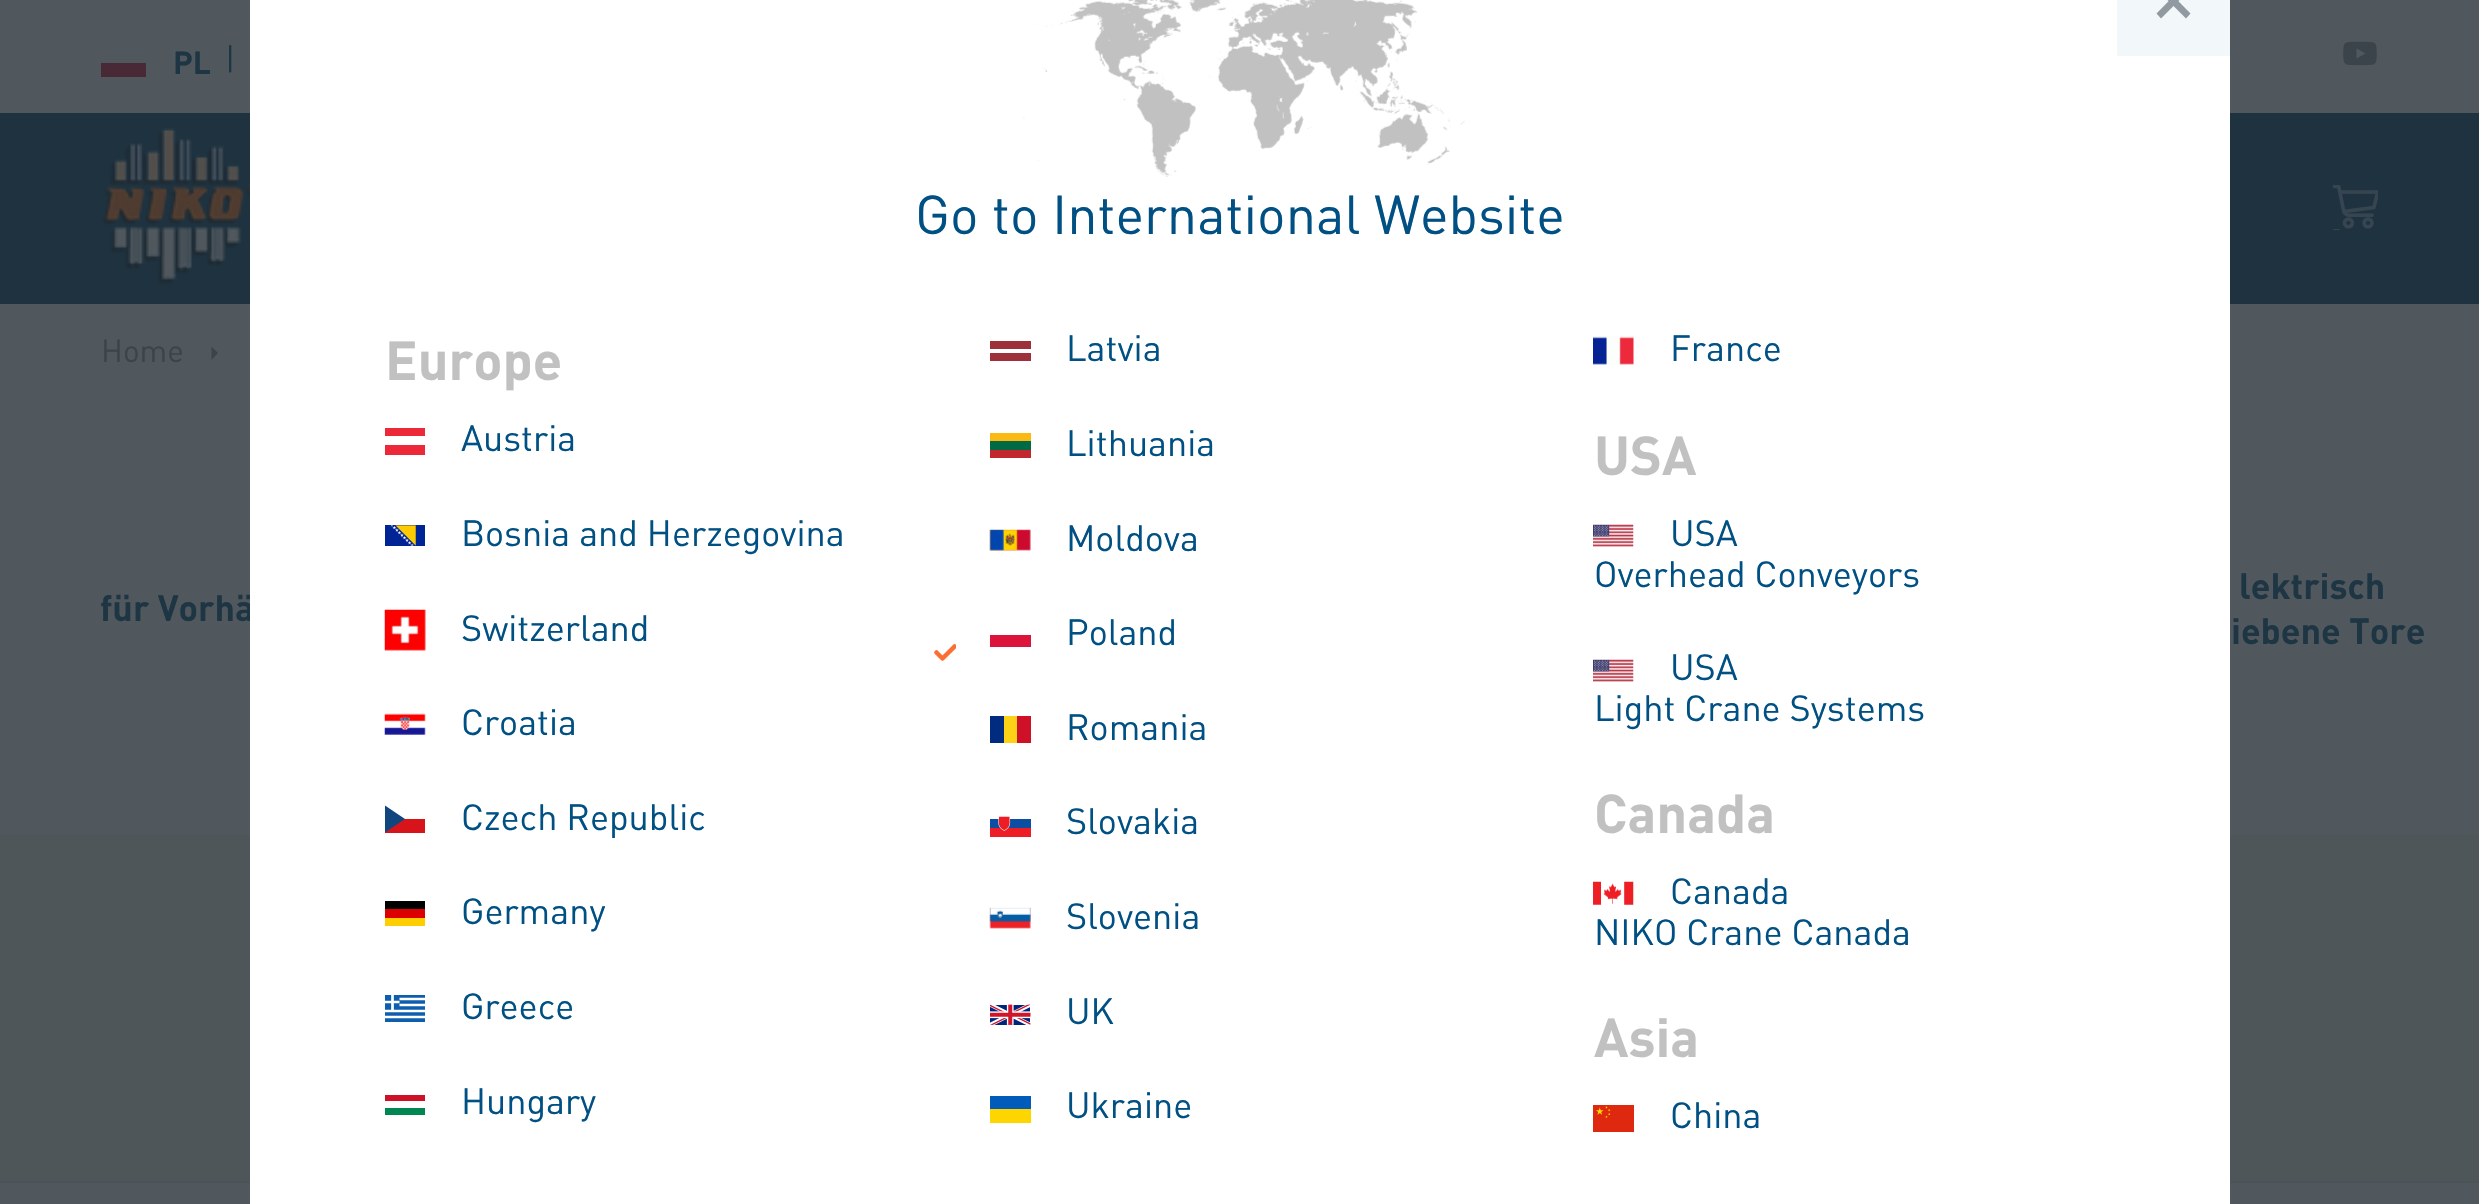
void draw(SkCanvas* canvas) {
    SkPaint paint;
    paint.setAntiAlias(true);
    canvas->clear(0xFF51585D);
    paint.setColor(0xFF4A2936);
    canvas->drawRect(SkRect::MakeXYWH(101, 63, 45, 14), paint);
    SkFont font1(fontMgr->matchFamilyStyle("DIN", SkFontStyle::Bold()), 31.5f);
    font1.setSubpixel(true);
    paint.setColor(0xFF1E3544);
    canvas->drawString("PL", 173, 74, font1, paint);
    SkFont font2(fontMgr->matchFamilyStyle("DIN", SkFontStyle::Normal()), 31.5f);
    font2.setSubpixel(true);
    canvas->drawString("|", 225, 70, font2, paint);
    canvas->drawImageRect(SkImages::DeferredFromEncodedData(SkData::MakeFromFileName("img1.png")), SkRect::MakeXYWH(2343, 41, 34, 25), SkSamplingOptions());
    paint.setColor(0xFF1E323F);
    canvas->drawRect(SkRect::MakeXYWH(0, 113, 2479, 191), paint);
    canvas->drawImageRect(SkImages::DeferredFromEncodedData(SkData::MakeFromFileName("img2.png")), SkRect::MakeXYWH(101, 128, 149, 158), SkSamplingOptions());
    canvas->drawImageRect(SkImages::DeferredFromEncodedData(SkData::MakeFromFileName("img3.png")), SkRect::MakeXYWH(2333, 185, 45, 45), SkSamplingOptions());
    paint.setColor(0xFF3B444A);
    canvas->drawString("Home", 101, 362, font2, paint);
    canvas->drawPath(SkPathBuilder().moveTo(211.5f, 360).lineTo(211.5f, 346.5f).lineTo(218, 353).close().detach(), paint);
    SkFont font3(fontMgr->matchFamilyStyle("DIN", SkFontStyle::Bold()), 36);
    font3.setSubpixel(true);
    paint.setColor(0xFF1E3544);
    canvas->drawString("für Vorhä", 100, 621, font3, paint);
    canvas->drawString("lektrisch", 2239, 599, font3, paint);
    canvas->drawString("iebene Tore", 2231, 644, font3, paint);
    paint.setColor(0xFF4F565A);
    canvas->drawRect(SkRect::MakeXYWH(0, 835, 2479, 346), paint);
    paint.setColor(0xFF4C5359);
    canvas->drawRect(SkRect::MakeXYWH(0, 1181, 2479, 2), paint);
    paint.setColor(0xFFFFFFFF);
    canvas->drawRect(SkRect::MakeXYWH(250, 0, 1980, 1204), paint);
    canvas->drawImageRect(SkImages::DeferredFromEncodedData(SkData::MakeFromFileName("img4.png")), SkRect::MakeXYWH(1023, 0, 442, 177), SkSamplingOptions());
    paint.setColor(0xFFF2F7FA);
    canvas->drawRect(SkRect::MakeXYWH(2117, 0, 113, 56), paint);
    paint.setColor(0xFF919AA1);
    canvas->drawPath(SkPathBuilder().moveTo(2154, -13.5f).lineTo(2159, -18.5f).lineTo(2190.5f, 13.5f).lineTo(2186, 18.5f).close().detach(), paint);
    canvas->drawPath(SkPathBuilder().moveTo(2188, -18.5f).lineTo(2193, -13.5f).lineTo(2161, 18.5f).lineTo(2156.5f, 13.5f).close().detach(), paint);
    SkFont font4(fontMgr->matchFamilyStyle("DIN", SkFontStyle::Normal()), 54);
    font4.setSubpixel(true);
    paint.setColor(0xFF005083);
    canvas->drawString("Go to International Website", 915, 234, font4, paint);
    paint.setColor(0xFF9E3039);
    canvas->drawRect(SkRect::MakeXYWH(990, 341, 41, 20), paint);
    paint.setColor(0xFFFFFFFF);
    canvas->drawRect(SkRect::MakeXYWH(990, 349, 41, 4), paint);
    SkFont font5(fontMgr->matchFamilyStyle("DIN", SkFontStyle::Normal()), 36);
    font5.setSubpixel(true);
    paint.setColor(0xFF005083);
    canvas->drawString("Latvia", 1066, 361, font5, paint);
    canvas->drawImageRect(SkImages::DeferredFromEncodedData(SkData::MakeFromFileName("img5.png")), SkRect::MakeXYWH(1593, 336, 41, 29), SkSamplingOptions());
    canvas->drawString("France", 1670, 361, font5, paint);
    paint.setColor(0xFFED2939);
    canvas->drawRect(SkRect::MakeXYWH(385, 428, 40, 27), paint);
    paint.setColor(0xFFFFFFFF);
    canvas->drawRect(SkRect::MakeXYWH(385, 436, 40, 9), paint);
    paint.setColor(0xFF005083);
    canvas->drawString("Austria", 461, 451, font5, paint);
    paint.setColor(0xFFFDB913);
    canvas->drawRect(SkRect::MakeXYWH(990, 433, 41, 8), paint);
    paint.setColor(0xFFC1272D);
    canvas->drawRect(SkRect::MakeXYWH(990, 450, 41, 8), paint);
    paint.setColor(0xFF006A44);
    canvas->drawRect(SkRect::MakeXYWH(990, 441, 41, 9), paint);
    paint.setColor(0xFF005083);
    canvas->drawString("Lithuania", 1066, 456, font5, paint);
    canvas->drawImageRect(SkImages::DeferredFromEncodedData(SkData::MakeFromFileName("img6.png")), SkRect::MakeXYWH(385, 525, 40, 21), SkSamplingOptions());
    canvas->drawString("Bosnia and Herzegovina", 461, 546, font5, paint);
    canvas->drawImageRect(SkImages::DeferredFromEncodedData(SkData::MakeFromFileName("img7.png")), SkRect::MakeXYWH(989, 529, 42, 22), SkSamplingOptions());
    canvas->drawString("Moldova", 1066, 551, font5, paint);
    canvas->drawImageRect(SkImages::DeferredFromEncodedData(SkData::MakeFromFileName("img8.png")), SkRect::MakeXYWH(384, 609, 42, 42), SkSamplingOptions());
    canvas->drawString("Switzerland", 461, 641, font5, paint);
    paint.setColor(0xFFDC143C);
    canvas->drawRect(SkRect::MakeXYWH(990, 635, 41, 12), paint);
    paint.setColor(0xFF005083);
    canvas->drawString("Poland", 1066, 645, font5, paint);
    canvas->save();
    canvas->clipRect(SkRect::MakeXYWH(934, 644, 22, 18));
    paint.setStyle(SkPaint::kStroke_Style);
    paint.setStrokeWidth(4.5f);
    paint.setStrokeCap(SkPaint::kRound_Cap);
    paint.setStrokeJoin(SkPaint::kRound_Join);
    paint.setColor(0xFFFB6F33);
    canvas->drawPath(SkPathBuilder().moveTo(936.5f, 652.5f).lineTo(942.5f, 658.5f).lineTo(954.5f, 646.5f).detach(), paint);
    canvas->restore();
    canvas->drawImageRect(SkImages::DeferredFromEncodedData(SkData::MakeFromFileName("img9.png")), SkRect::MakeXYWH(384, 713, 42, 22), SkSamplingOptions());
    paint.setStyle(SkPaint::kFill_Style);
    paint.setColor(0xFF005083);
    canvas->drawString("Croatia", 461, 735, font5, paint);
    paint.setColor(0xFF002B7F);
    canvas->drawRect(SkRect::MakeXYWH(990, 716, 14, 27), paint);
    paint.setColor(0xFFFCD116);
    canvas->drawRect(SkRect::MakeXYWH(1004, 716, 13, 27), paint);
    paint.setColor(0xFFCE1126);
    canvas->drawRect(SkRect::MakeXYWH(1017, 716, 14, 27), paint);
    paint.setColor(0xFF005083);
    canvas->drawString("Romania", 1066, 740, font5, paint);
    paint.setColor(0xFFD7141A);
    canvas->drawRect(SkRect::MakeXYWH(385, 819, 40, 14), paint);
    paint.setColor(0xFF11457E);
    canvas->drawPath(SkPathBuilder().moveTo(405, 819).lineTo(385, 805.5f).lineTo(385, 832.5f).close().detach(), paint);
    paint.setColor(0xFF005083);
    canvas->drawString("Czech Republic", 461, 830, font5, paint);
    canvas->drawImageRect(SkImages::DeferredFromEncodedData(SkData::MakeFromFileName("img10.png")), SkRect::MakeXYWH(990, 816, 41, 21), SkSamplingOptions());
    canvas->drawString("Slovakia", 1066, 834, font5, paint);
    paint.setColor(0xFF000000);
    canvas->drawRect(SkRect::MakeXYWH(385, 901, 40, 8), paint);
    paint.setColor(0xFFDD0000);
    canvas->drawRect(SkRect::MakeXYWH(385, 909, 40, 9), paint);
    paint.setColor(0xFFFFCE00);
    canvas->drawRect(SkRect::MakeXYWH(385, 918, 40, 8), paint);
    paint.setColor(0xFF005083);
    canvas->drawString("Germany", 461, 924, font5, paint);
    canvas->drawImageRect(SkImages::DeferredFromEncodedData(SkData::MakeFromFileName("img11.png")), SkRect::MakeXYWH(989, 907, 42, 22), SkSamplingOptions());
    canvas->drawString("Slovenia", 1066, 929, font5, paint);
    paint.setColor(0xFF0D5EAF);
    canvas->drawRect(SkRect::MakeXYWH(385, 995, 40, 27), paint);
    paint.setStyle(SkPaint::kStroke_Style);
    paint.setStrokeWidth(2.7f);
    paint.setStrokeCap(SkPaint::kButt_Cap);
    paint.setStrokeJoin(SkPaint::kMiter_Join);
    paint.setColor(0xFFFFFFFF);
    canvas->drawPath(SkPathBuilder().moveTo(392.5f, 994.5f).lineTo(392.5f, 1011).moveTo(385, 1002).lineTo(399.5f, 1002).moveTo(399.5f, 999).lineTo(425, 999).moveTo(399.5f, 1005).lineTo(425, 1005).moveTo(385, 1011).lineTo(425, 1011).moveTo(385, 1017).lineTo(425, 1017).detach(), paint);
    paint.setStyle(SkPaint::kFill_Style);
    paint.setColor(0xFF005083);
    canvas->drawString("Greece", 461, 1019, font5, paint);
    canvas->drawImageRect(SkImages::DeferredFromEncodedData(SkData::MakeFromFileName("img12.png")), SkRect::MakeXYWH(990, 1004, 41, 21), SkSamplingOptions());
    canvas->drawString("UK", 1066, 1024, font5, paint);
    paint.setColor(0xFFCE1126);
    canvas->drawRect(SkRect::MakeXYWH(385, 1095, 40, 6), paint);
    paint.setColor(0xFF008751);
    canvas->drawRect(SkRect::MakeXYWH(385, 1108, 40, 7), paint);
    paint.setColor(0xFF005083);
    canvas->drawString("Hungary", 461, 1114, font5, paint);
    paint.setColor(0xFF005BBB);
    canvas->drawRect(SkRect::MakeXYWH(990, 1096, 41, 13), paint);
    paint.setColor(0xFFFFD500);
    canvas->drawRect(SkRect::MakeXYWH(990, 1109, 41, 14), paint);
    paint.setColor(0xFF005083);
    canvas->drawString("Ukraine", 1066, 1118, font5, paint);
    SkFont font6(fontMgr->matchFamilyStyle("DIN", SkFontStyle::Bold()), 54);
    font6.setSubpixel(true);
    paint.setColor(0xFFC1C1C1);
    canvas->drawString("Europe", 385, 380, font6, paint);
    canvas->drawString("USA", 1594, 475, font6, paint);
    canvas->drawImageRect(SkImages::DeferredFromEncodedData(SkData::MakeFromFileName("img13.png")), SkRect::MakeXYWH(1593, 524, 41, 23), SkSamplingOptions());
    paint.setColor(0xFF005083);
    canvas->drawString("USA", 1670, 546, font5, paint);
    canvas->drawString("Overhead Conveyors", 1594, 587, font5, paint);
    canvas->drawImageRect(SkImages::DeferredFromEncodedData(SkData::MakeFromFileName("img13.png")), SkRect::MakeXYWH(1593, 659, 41, 23), SkSamplingOptions());
    canvas->drawString("USA", 1670, 680, font5, paint);
    canvas->drawString("Light Crane Systems", 1594, 721, font5, paint);
    paint.setColor(0xFFC1C1C1);
    canvas->drawString("Canada", 1594, 833, font6, paint);
    canvas->drawImageRect(SkImages::DeferredFromEncodedData(SkData::MakeFromFileName("img14.png")), SkRect::MakeXYWH(1593, 881, 41, 24), SkSamplingOptions());
    paint.setColor(0xFF005083);
    canvas->drawString("Canada", 1670, 904, font5, paint);
    canvas->drawString("NIKO Crane Canada", 1594, 945, font5, paint);
    paint.setColor(0xFFC1C1C1);
    canvas->drawString("Asia", 1594, 1057, font6, paint);
    canvas->drawImageRect(SkImages::DeferredFromEncodedData(SkData::MakeFromFileName("img15.png")), SkRect::MakeXYWH(1593, 1105, 41, 27), SkSamplingOptions());
    paint.setColor(0xFF005083);
    canvas->drawString("China", 1670, 1128, font5, paint);
}
